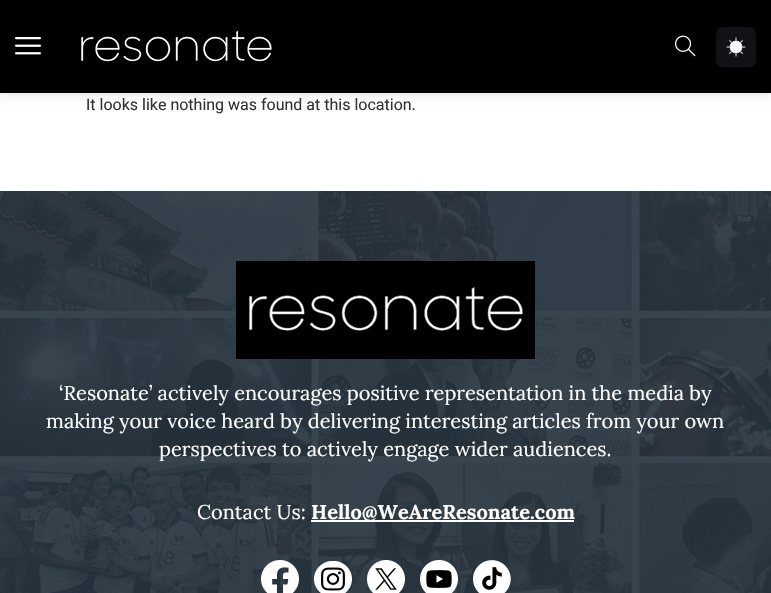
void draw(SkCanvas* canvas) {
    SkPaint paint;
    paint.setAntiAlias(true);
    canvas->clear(0xFFFFFFFF);
    paint.setColor(0x26000000);
    paint.setMaskFilter(SkMaskFilter::MakeBlur(kNormal_SkBlurStyle, 5));
    canvas->drawRect(SkRect::MakeXYWH(0, 0, 771, 93), paint);
    paint.setMaskFilter(nullptr);
    paint.setColor(0xFF000000);
    canvas->drawRect(SkRect::MakeXYWH(0, 0, 771, 93), paint);
    canvas->drawImageRect(SkImages::DeferredFromEncodedData(SkData::MakeFromFileName("img1.png")), SkRect::MakeXYWH(15, 37, 26, 18), SkSamplingOptions());
    canvas->drawImageRect(SkImages::DeferredFromEncodedData(SkData::MakeFromFileName("img2.png")), SkRect::MakeXYWH(81, 30, 191, 32), SkSamplingOptions());
    canvas->drawImageRect(SkImages::DeferredFromEncodedData(SkData::MakeFromFileName("img3.png")), SkRect::MakeXYWH(675, 35, 21, 22), SkSamplingOptions());
    paint.setColor(0xFF121116);
    canvas->drawRoundRect(SkRect::MakeXYWH(716, 27, 40, 40), 7, 7, paint);
    canvas->drawImageRect(SkImages::DeferredFromEncodedData(SkData::MakeFromFileName("img4.png")), SkRect::MakeXYWH(726, 37, 20, 20), SkSamplingOptions());
    SkFont font1(fontMgr->matchFamilyStyle("Roboto", SkFontStyle::Normal()), 16);
    font1.setSubpixel(true);
    paint.setColor(0xFF333333);
    canvas->drawString("It looks like nothing was found at this location.", 86, 110, font1, paint);
    canvas->drawImageRect(SkImages::DeferredFromEncodedData(SkData::MakeFromFileName("img5.png")), SkRect::MakeXYWH(0, 191, 771, 402), SkSamplingOptions());
    canvas->drawImageRect(SkImages::DeferredFromEncodedData(SkData::MakeFromFileName("img6.png")), SkRect::MakeXYWH(236, 261, 299, 98), SkSamplingOptions());
    SkFont font2(fontMgr->matchFamilyStyle("Lora", SkFontStyle::Normal()), 20);
    font2.setSubpixel(true);
    paint.setColor(0xFFFFFFFF);
    canvas->drawString("‘Resonate’ actively encourages positive representation in the media by", 59, 400, font2, paint);
    canvas->drawString("making your voice heard by delivering interesting articles from your own", 46, 428, font2, paint);
    canvas->drawString("perspectives to actively engage wider audiences.", 159, 456, font2, paint);
    canvas->drawString("Contact Us:", 197, 519, font2, paint);
    canvas->drawRect(SkRect::MakeXYWH(311, 520, 263, 2), paint);
    SkFont font3(fontMgr->matchFamilyStyle("Lora", SkFontStyle::Bold()), 20);
    font3.setSubpixel(true);
    canvas->drawString("Hello@WeAreResonate.com", 311, 519, font3, paint);
    canvas->drawImageRect(SkImages::DeferredFromEncodedData(SkData::MakeFromFileName("img7.png")), SkRect::MakeXYWH(261, 560, 38, 33), SkSamplingOptions());
    canvas->drawImageRect(SkImages::DeferredFromEncodedData(SkData::MakeFromFileName("img8.png")), SkRect::MakeXYWH(314, 561, 38, 32), SkSamplingOptions());
    canvas->drawImageRect(SkImages::DeferredFromEncodedData(SkData::MakeFromFileName("img9.png")), SkRect::MakeXYWH(367, 560, 38, 33), SkSamplingOptions());
    canvas->drawImageRect(SkImages::DeferredFromEncodedData(SkData::MakeFromFileName("img10.png")), SkRect::MakeXYWH(420, 560, 38, 33), SkSamplingOptions());
    canvas->drawImageRect(SkImages::DeferredFromEncodedData(SkData::MakeFromFileName("img11.png")), SkRect::MakeXYWH(473, 560, 38, 33), SkSamplingOptions());
}
